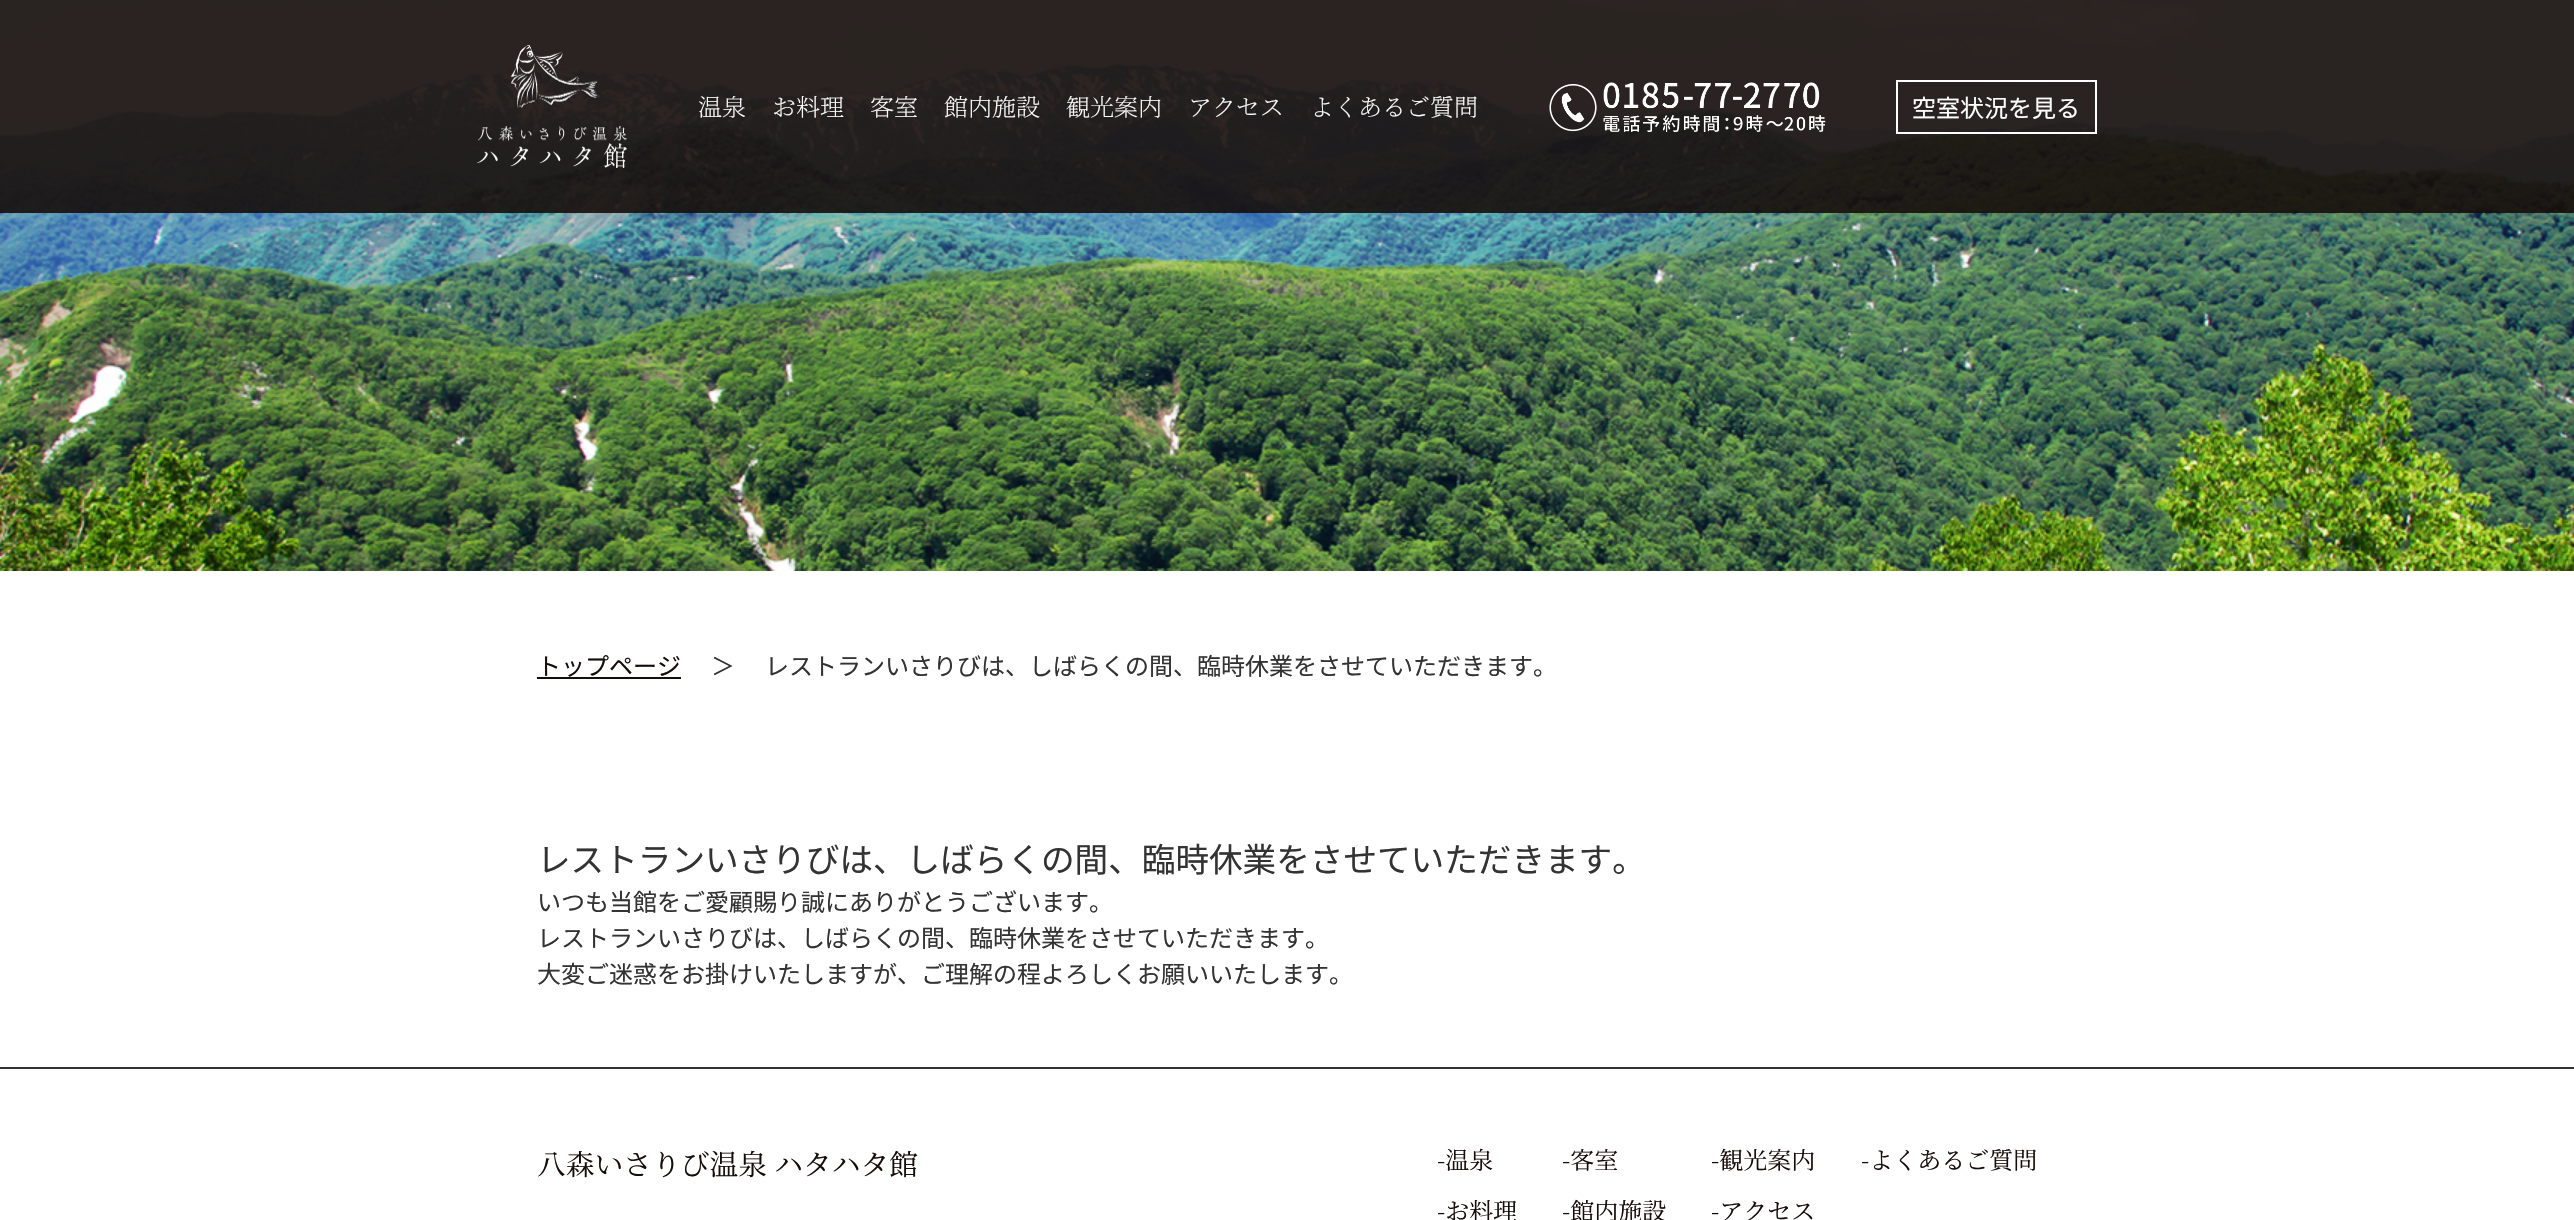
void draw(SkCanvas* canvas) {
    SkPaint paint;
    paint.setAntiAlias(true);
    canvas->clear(0xFFFFFFFF);
    canvas->drawImageRect(SkImages::DeferredFromEncodedData(SkData::MakeFromFileName("img3.png")), SkRect::MakeXYWH(0, 0, 2574, 571), SkSamplingOptions());
    paint.setColor(0xE6160D0A);
    canvas->drawRect(SkRect::MakeXYWH(0, 0, 2574, 213), paint);
    canvas->drawImageRect(SkImages::DeferredFromEncodedData(SkData::MakeFromFileName("img1.png")), SkRect::MakeXYWH(477, 45, 150, 123), SkSamplingOptions());
    SkFont font1(fontMgr->matchFamilyStyle("Noto Serif JP", SkFontStyle(200, SkFontStyle::kNormal_Width, SkFontStyle::kUpright_Slant)), 24);
    font1.setSubpixel(true);
    paint.setColor(0xFFFFFFFF);
    canvas->drawString("温泉", 698, 116, font1, paint);
    canvas->drawString("お料理", 772, 116, font1, paint);
    canvas->drawString("客室", 870, 116, font1, paint);
    canvas->drawString("館内施設", 944, 116, font1, paint);
    canvas->drawString("観光案内", 1066, 116, font1, paint);
    canvas->drawString("アクセス", 1188, 116, font1, paint);
    canvas->drawString("よくあるご質問", 1310, 116, font1, paint);
    canvas->drawImageRect(SkImages::DeferredFromEncodedData(SkData::MakeFromFileName("img2.png")), SkRect::MakeXYWH(1549, 82, 277, 50), SkSamplingOptions());
    paint.setStyle(SkPaint::kStroke_Style);
    paint.setStrokeWidth(2);
    canvas->drawRect(SkRect::MakeXYWH(1897, 81, 199, 52), paint);
    SkFont font2(fontMgr->matchFamilyStyle("Noto Sans JP", SkFontStyle::Normal()), 24);
    font2.setSubpixel(true);
    paint.setStyle(SkPaint::kFill_Style);
    canvas->drawString("空室状況を見る", 1912, 117, font2, paint);
    paint.setColor(0xFF160D0A);
    canvas->drawString("トップページ", 537, 675, font2, paint);
    canvas->drawRect(SkRect::MakeXYWH(537, 677, 144, 2), paint);
    paint.setColor(0xFF333333);
    canvas->drawString("＞", 711, 675, font2, paint);
    canvas->drawString("レストランいさりびは、しばらくの間、臨時休業をさせていただきます。", 765, 675, font2, paint);
    SkFont font3(fontMgr->matchFamilyStyle("Noto Sans JP", SkFontStyle::Normal()), 33.6f);
    font3.setSubpixel(true);
    canvas->drawString("レストランいさりびは、しばらくの間、臨時休業をさせていただきます。", 537, 872, font3, paint);
    canvas->drawString("いつも当館をご愛顧賜り誠にありがとうございます。", 537, 911, font2, paint);
    canvas->drawString("レストランいさりびは、しばらくの間、臨時休業をさせていただきます。", 537, 947, font2, paint);
    canvas->drawString("大変ご迷惑をお掛けいたしますが、ご理解の程よろしくお願いいたします。", 537, 983, font2, paint);
    canvas->drawRect(SkRect::MakeXYWH(0, 1067, 2574, 2), paint);
    SkFont font4(fontMgr->matchFamilyStyle("Noto Serif JP", SkFontStyle::Normal()), 28.75f);
    font4.setSubpixel(true);
    paint.setColor(0xFF160D0A);
    canvas->drawString("八森いさりび温泉 ハタハタ館", 537, 1175, font4, paint);
    SkFont font5(fontMgr->matchFamilyStyle("Noto Serif JP", SkFontStyle::Normal()), 24);
    font5.setSubpixel(true);
    canvas->drawString("-温泉", 1437, 1169, font5, paint);
    canvas->drawString("-お料理", 1437, 1220, font5, paint);
    canvas->drawString("-客室", 1562, 1169, font5, paint);
    canvas->drawString("-館内施設", 1562, 1220, font5, paint);
    canvas->drawString("-観光案内", 1711, 1169, font5, paint);
    canvas->drawString("-アクセス", 1711, 1220, font5, paint);
    canvas->drawString("-よくあるご質問", 1861, 1169, font5, paint);
}
